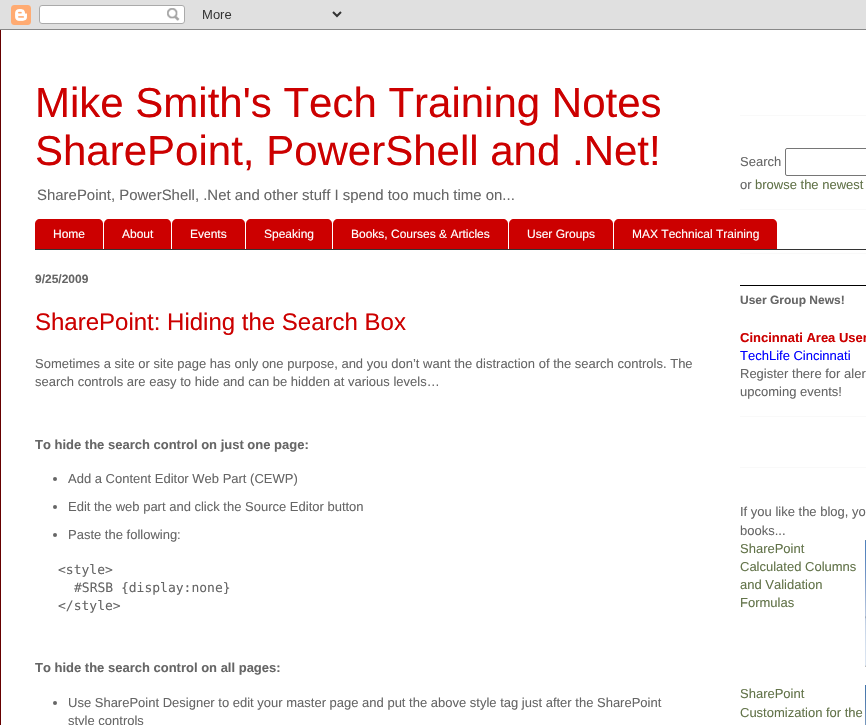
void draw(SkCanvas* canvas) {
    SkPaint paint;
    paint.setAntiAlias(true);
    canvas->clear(0xFFCCCCCC);
    canvas->drawImageRect(SkImages::DeferredFromEncodedData(SkData::MakeFromFileName("img1.png")), SkRect::MakeXYWH(0, 0, 866, 30), SkSamplingOptions());
    paint.setColor(0xFFFFFFFF);
    canvas->drawRect(SkRect::MakeXYWH(1, 30, 865, 695), paint);
    paint.setColor(0xFF660000);
    canvas->drawRect(SkRect::MakeXYWH(0, 30, 1, 695), paint);
    SkFont font1(fontMgr->matchFamilyStyle("Liberation Sans", SkFontStyle::Normal()), 42);
    font1.setSubpixel(true);
    paint.setColor(0xFFCC0000);
    canvas->drawString("Mike Smith's Tech Training Notes", 35, 117, font1, paint);
    canvas->drawString("SharePoint, PowerShell and .Net!", 35, 165, font1, paint);
    SkFont font2(fontMgr->matchFamilyStyle("Liberation Sans", SkFontStyle::Normal()), 14.95f);
    font2.setSubpixel(true);
    paint.setColor(0xFF666666);
    canvas->drawString("SharePoint, PowerShell, .Net and other stuff I spend too much time on...", 37, 200, font2, paint);
    SkFont font3(fontMgr->matchFamilyStyle("Liberation Sans", SkFontStyle::Bold()), 12);
    font3.setSubpixel(true);
    canvas->drawString("9/25/2009", 35, 283, font3, paint);
    SkFont font4(fontMgr->matchFamilyStyle("Liberation Sans", SkFontStyle::Normal()), 24);
    font4.setSubpixel(true);
    paint.setColor(0xFFCC0000);
    canvas->drawString("SharePoint: Hiding the Search Box", 35, 330, font4, paint);
    SkFont font5(fontMgr->matchFamilyStyle("Liberation Sans", SkFontStyle::Normal()), 13);
    font5.setSubpixel(true);
    paint.setColor(0xFF666666);
    canvas->drawString("Sometimes a site or site page has only one purpose, and you don’t want the distraction of the search controls. The", 35, 368, font5, paint);
    canvas->drawString("search controls are easy to hide and can be hidden at various levels…", 35, 386, font5, paint);
    SkFont font6(fontMgr->matchFamilyStyle("Liberation Sans", SkFontStyle::Bold()), 13);
    font6.setSubpixel(true);
    canvas->drawString("To hide the search control on just one page:", 35, 449, font6, paint);
    canvas->drawCircle(55, 479, 2, paint);
    canvas->drawString("Add a Content Editor Web Part (CEWP)", 68, 483, font5, paint);
    canvas->drawCircle(55, 507, 2, paint);
    canvas->drawString("Edit the web part and click the Source Editor button", 68, 511, font5, paint);
    canvas->drawCircle(55, 535, 2, paint);
    canvas->drawString("Paste the following:", 68, 539, font5, paint);
    SkFont font7(fontMgr->matchFamilyStyle("DejaVu Sans Mono", SkFontStyle::Normal()), 13);
    font7.setSubpixel(true);
    canvas->drawString("<style>", 58, 574, font7, paint);
    canvas->drawString("#SRSB {display:none}", 74, 592, font7, paint);
    canvas->drawString("</style>", 58, 610, font7, paint);
    canvas->drawString("To hide the search control on all pages:", 35, 672, font6, paint);
    canvas->drawCircle(55, 703, 2, paint);
    canvas->drawString("Use SharePoint Designer to edit your master page and put the above style tag just after the SharePoint", 68, 707, font5, paint);
    canvas->drawString("style controls", 68, 725, font5, paint);
    paint.setColor(0xFFF9F9F9);
    canvas->drawRect(SkRect::MakeXYWH(740, 115, 126, 1), paint);
    canvas->drawRect(SkRect::MakeXYWH(740, 209, 126, 1), paint);
    paint.setColor(0xFF666666);
    canvas->drawString("Search", 740, 166, font5, paint);
    paint.setStyle(SkPaint::kStroke_Style);
    paint.setStrokeWidth(1);
    paint.setColor(0xFF767676);
    canvas->drawRoundRect(SkRect::MakeXYWH(785.5f, 148.5f, 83, 27), 1.5f, 1.5f, paint);
    paint.setStyle(SkPaint::kFill_Style);
    paint.setColor(0xFF666666);
    canvas->drawString("or", 740, 189, font5, paint);
    paint.setColor(0xFF627349);
    canvas->drawString("browse the newest", 755, 189, font5, paint);
    paint.setColor(0xFFF9F9F9);
    canvas->drawRect(SkRect::MakeXYWH(740, 253, 126, 1), paint);
    canvas->drawRect(SkRect::MakeXYWH(740, 416, 126, 1), paint);
    paint.setColor(0xFF000000);
    canvas->drawRect(SkRect::MakeXYWH(740, 285, 126, 1), paint);
    paint.setColor(0xFF666666);
    canvas->drawString("User Group News!", 740, 304, font3, paint);
    paint.setColor(0xFFCC0000);
    canvas->drawString("Cincinnati Area User", 740, 342, font6, paint);
    paint.setColor(0xFF0000FF);
    canvas->drawString("TechLife Cincinnati", 740, 360, font5, paint);
    paint.setColor(0xFF666666);
    canvas->drawString("Register there for aler", 740, 378, font5, paint);
    canvas->drawString("upcoming events!", 740, 396, font5, paint);
    paint.setColor(0xFFF9F9F9);
    canvas->drawRect(SkRect::MakeXYWH(740, 467, 126, 1), paint);
    paint.setColor(0xFF666666);
    canvas->drawString("If you like the blog, yo", 740, 516, font5, paint);
    canvas->drawString("books...", 740, 535, font5, paint);
    paint.setColor(0xFF627349);
    canvas->drawString("SharePoint", 740, 553, font5, paint);
    canvas->drawImageRect(SkImages::DeferredFromEncodedData(SkData::MakeFromFileName("img2.png")), SkRect::MakeXYWH(865, 540, 1, 127), SkSamplingOptions());
    canvas->drawString("Calculated Columns", 740, 571, font5, paint);
    canvas->drawString("and Validation", 740, 589, font5, paint);
    canvas->drawString("Formulas", 740, 607, font5, paint);
    canvas->drawString("SharePoint", 740, 698, font5, paint);
    canvas->drawImageRect(SkImages::DeferredFromEncodedData(SkData::MakeFromFileName("img3.png")), SkRect::MakeXYWH(865, 685, 1, 40), SkSamplingOptions());
    canvas->drawString("Customization for the", 740, 717, font5, paint);
    paint.setColor(0xFF333333);
    canvas->drawRect(SkRect::MakeXYWH(35, 249, 831, 1), paint);
    paint.setColor(0xFFCC0000);
    canvas->drawPath(SkPathBuilder().moveTo(40, 219).lineTo(98, 219).cubicTo(101, 219, 103, 221, 103, 224).lineTo(103, 249).lineTo(35, 249).lineTo(35, 224).cubicTo(35, 221, 37, 219, 40, 219).close().detach(), paint);
    SkFont font8(fontMgr->matchFamilyStyle("Liberation Sans", SkFontStyle::Normal()), 12);
    font8.setSubpixel(true);
    paint.setColor(0xFFFFFFFF);
    canvas->drawString("Home", 53, 238, font8, paint);
    paint.setColor(0xFFCC0000);
    canvas->drawPath(SkPathBuilder().moveTo(109, 219).lineTo(166, 219).cubicTo(169, 219, 171, 221, 171, 224).lineTo(171, 249).lineTo(104, 249).lineTo(104, 224).cubicTo(104, 221, 106, 219, 109, 219).close().detach(), paint);
    paint.setColor(0xFFFFFFFF);
    canvas->drawString("About", 122, 238, font8, paint);
    paint.setColor(0xFFCC0000);
    canvas->drawPath(SkPathBuilder().moveTo(177, 219).lineTo(240, 219).cubicTo(243, 219, 245, 221, 245, 224).lineTo(245, 249).lineTo(172, 249).lineTo(172, 224).cubicTo(172, 221, 174, 219, 177, 219).close().detach(), paint);
    paint.setColor(0xFFFFFFFF);
    canvas->drawString("Events", 190, 238, font8, paint);
    paint.setColor(0xFFCC0000);
    canvas->drawPath(SkPathBuilder().moveTo(251, 219).lineTo(327, 219).cubicTo(330, 219, 332, 221, 332, 224).lineTo(332, 249).lineTo(246, 249).lineTo(246, 224).cubicTo(246, 221, 248, 219, 251, 219).close().detach(), paint);
    paint.setColor(0xFFFFFFFF);
    canvas->drawString("Speaking", 264, 238, font8, paint);
    paint.setColor(0xFFCC0000);
    canvas->drawPath(SkPathBuilder().moveTo(338, 219).lineTo(503, 219).cubicTo(506, 219, 508, 221, 508, 224).lineTo(508, 249).lineTo(333, 249).lineTo(333, 224).cubicTo(333, 221, 335, 219, 338, 219).close().detach(), paint);
    paint.setColor(0xFFFFFFFF);
    canvas->drawString("Books, Courses & Articles", 351, 238, font8, paint);
    paint.setColor(0xFFCC0000);
    canvas->drawPath(SkPathBuilder().moveTo(514, 219).lineTo(608, 219).cubicTo(611, 219, 613, 221, 613, 224).lineTo(613, 249).lineTo(509, 249).lineTo(509, 224).cubicTo(509, 221, 511, 219, 514, 219).close().detach(), paint);
    paint.setColor(0xFFFFFFFF);
    canvas->drawString("User Groups", 527, 238, font8, paint);
    paint.setColor(0xFFCC0000);
    canvas->drawPath(SkPathBuilder().moveTo(619, 219).lineTo(772, 219).cubicTo(775, 219, 777, 221, 777, 224).lineTo(777, 249).lineTo(614, 249).lineTo(614, 224).cubicTo(614, 221, 616, 219, 619, 219).close().detach(), paint);
    paint.setColor(0xFFFFFFFF);
    canvas->drawString("MAX Technical Training", 632, 238, font8, paint);
}
